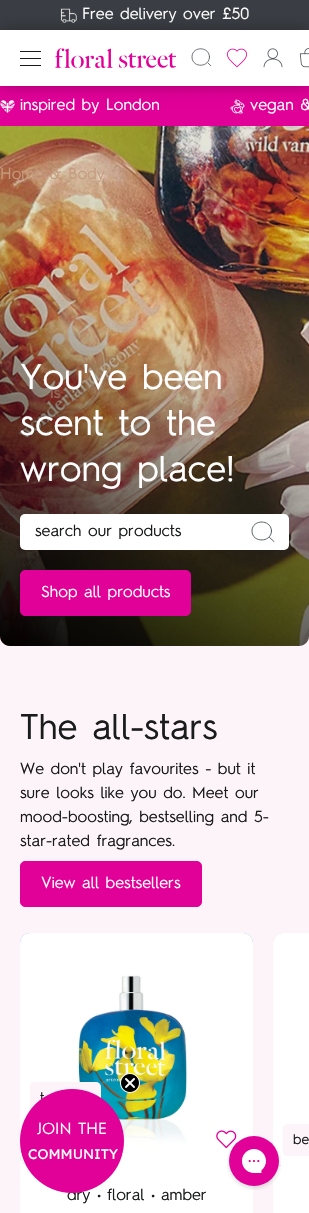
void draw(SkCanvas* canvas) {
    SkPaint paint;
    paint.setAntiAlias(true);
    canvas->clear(0xFFFCF4F9);
    paint.setColor(0xFF3A3D43);
    canvas->drawRect(SkRect::MakeXYWH(0, 0, 309, 30), paint);
    canvas->drawImageRect(SkImages::DeferredFromEncodedData(SkData::MakeFromFileName("img1.png")), SkRect::MakeXYWH(60, 8, 17, 15), SkSamplingOptions());
    SkFont font1(fontMgr->matchFamilyStyle("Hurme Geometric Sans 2", SkFontStyle::Normal()), 16);
    font1.setSubpixel(true);
    paint.setColor(0xFFFFFFFF);
    canvas->drawString("Free delivery over £50", 82, 19, font1, paint);
    paint.setColor(0xFFE10098);
    canvas->drawRect(SkRect::MakeXYWH(0, 86, 309, 40), paint);
    canvas->drawImageRect(SkImages::DeferredFromEncodedData(SkData::MakeFromFileName("img2.png")), SkRect::MakeXYWH(0, 100, 15, 13), SkSamplingOptions());
    paint.setColor(0xFFFFFFFF);
    canvas->drawString("inspired by London", 20, 110, font1, paint);
    canvas->drawImageRect(SkImages::DeferredFromEncodedData(SkData::MakeFromFileName("img3.png")), SkRect::MakeXYWH(230, 99, 15, 15), SkSamplingOptions());
    canvas->drawString("vegan &", 250, 110, font1, paint);
    paint.setColor(0x4D000000);
    paint.setMaskFilter(SkMaskFilter::MakeBlur(kNormal_SkBlurStyle, 7.5f));
    canvas->drawRect(SkRect::MakeXYWH(0, 30, 309, 56), paint);
    paint.setMaskFilter(nullptr);
    paint.setColor(0xFFFFFFFF);
    canvas->drawRect(SkRect::MakeXYWH(0, 30, 309, 56), paint);
    canvas->drawImageRect(SkImages::DeferredFromEncodedData(SkData::MakeFromFileName("img4.png")), SkRect::MakeXYWH(55, 48, 121, 20), SkSamplingOptions());
    canvas->save();
    canvas->clipRect(SkRect::MakeXYWH(191, 48, 20, 20));
    paint.setStyle(SkPaint::kStroke_Style);
    paint.setStrokeWidth(0.8f);
    paint.setStrokeCap(SkPaint::kRound_Cap);
    paint.setColor(0xFF4B5157);
    canvas->drawPath(SkPathBuilder().moveTo(208, 63).lineTo(212, 67).moveTo(209.5f, 57).cubicTo(209.5f, 68, 192, 68, 192, 57).cubicTo(192, 46, 209.5f, 46, 209.5f, 57).close().detach(), paint);
    canvas->restore();
    canvas->drawImageRect(SkImages::DeferredFromEncodedData(SkData::MakeFromFileName("img5.png")), SkRect::MakeXYWH(227, 48, 20, 20), SkSamplingOptions());
    canvas->drawImageRect(SkImages::DeferredFromEncodedData(SkData::MakeFromFileName("img6.png")), SkRect::MakeXYWH(263, 48, 20, 20), SkSamplingOptions());
    canvas->drawImageRect(SkImages::DeferredFromEncodedData(SkData::MakeFromFileName("img7.png")), SkRect::MakeXYWH(299, 48, 10, 20), SkSamplingOptions());
    paint.setStyle(SkPaint::kFill_Style);
    paint.setColor(0xFF1A1B1B);
    canvas->drawRect(SkRect::MakeXYWH(20, 51, 21, 1), paint);
    canvas->drawRect(SkRect::MakeXYWH(20, 58, 21, 1), paint);
    canvas->drawRect(SkRect::MakeXYWH(20, 65, 21, 1), paint);
    canvas->drawImageRect(SkImages::DeferredFromEncodedData(SkData::MakeFromFileName("img8.png")), SkRect::MakeXYWH(0, 126, 309, 520), SkSamplingOptions());
    {
        const SkColor colors[] = {0xFF000000, 0x1A000000};
        const float stops[] = {0, 0.6f};
        const SkPoint ends[] = {{3.3f, 648}, {306, 124}};
        paint.setShader(SkGradientShader::MakeLinear(ends, colors, stops, 2, SkTileMode::kClamp));
        paint.setAlpha(255);
    }
    canvas->drawPath(SkPathBuilder().moveTo(0, 126).lineTo(309, 126).lineTo(309, 636).cubicTo(309, 641.5f, 304.5f, 646, 299, 646).lineTo(10, 646).cubicTo(4.5f, 646, 0, 641.5f, 0, 636).close().detach(), paint);
    paint.setShader(nullptr);
    paint.setColor(0xFFC59B7E);
    canvas->drawString("Home & Body", 0, 179, font1, paint);
    SkFont font2(fontMgr->matchFamilyStyle("Hurme Geometric Sans 2", SkFontStyle(600, SkFontStyle::kNormal_Width, SkFontStyle::kUpright_Slant)), 16);
    font2.setSubpixel(true);
    paint.setColor(0xFF8D6554);
    canvas->drawString("is", 50, 398, font2, paint);
    SkFont font3(fontMgr->matchFamilyStyle("Hurme Geometric Sans 2", SkFontStyle::Normal()), 36);
    font3.setSubpixel(true);
    paint.setColor(0xFFFFFFFF);
    canvas->drawString("You've been", 20, 389, font3, paint);
    canvas->drawString("scent to the", 20, 435, font3, paint);
    canvas->drawString("wrong place!", 20, 481, font3, paint);
    canvas->drawRoundRect(SkRect::MakeXYWH(20, 514, 269, 36), 5, 5, paint);
    paint.setColor(0xFF1A1B1B);
    canvas->drawString("search our products", 35, 536, font1, paint);
    paint.setStyle(SkPaint::kStroke_Style);
    paint.setStrokeWidth(0.9f);
    paint.setColor(0xFF4B5157);
    canvas->drawPath(SkPathBuilder().moveTo(269.5f, 537.5f).lineTo(274, 541.5f).moveTo(271.5f, 531).cubicTo(271.5f, 543, 252, 543, 252, 531).cubicTo(252, 519, 271.5f, 519, 271.5f, 531).close().detach(), paint);
    paint.setStyle(SkPaint::kFill_Style);
    paint.setColor(0xFFE10098);
    canvas->drawRoundRect(SkRect::MakeXYWH(20.5f, 570.5f, 170, 45), 4.5f, 4.5f, paint);
    paint.setStyle(SkPaint::kStroke_Style);
    paint.setStrokeWidth(1);
    paint.setStrokeCap(SkPaint::kButt_Cap);
    canvas->drawRoundRect(SkRect::MakeXYWH(20.5f, 570.5f, 170, 45), 4.5f, 4.5f, paint);
    paint.setStyle(SkPaint::kFill_Style);
    paint.setColor(0xFFFFFFFF);
    canvas->drawString("Shop all products", 41, 597, font1, paint);
    paint.setColor(0xFF1A1B1B);
    canvas->drawString("The all-stars", 20, 739, font3, paint);
    canvas->drawString("We don't play favourites - but it", 20, 774, font1, paint);
    canvas->drawString("sure looks like you do. Meet our", 20, 798, font1, paint);
    canvas->drawString("mood-boosting, bestselling and 5-", 20, 822, font1, paint);
    canvas->drawString("star-rated fragrances.", 20, 846, font1, paint);
    paint.setColor(0xFFE10098);
    canvas->drawRoundRect(SkRect::MakeXYWH(20.5f, 861.5f, 181, 45), 4.5f, 4.5f, paint);
    paint.setStyle(SkPaint::kStroke_Style);
    canvas->drawRoundRect(SkRect::MakeXYWH(20.5f, 861.5f, 181, 45), 4.5f, 4.5f, paint);
    paint.setStyle(SkPaint::kFill_Style);
    paint.setColor(0xFFFFFFFF);
    canvas->drawString("View all bestsellers", 41, 888, font1, paint);
    canvas->drawRoundRect(SkRect::MakeXYWH(20, 933, 233, 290), 10, 10, paint);
    paint.setColor(0xFF75BBD6);
    canvas->drawRoundRect(SkRect::MakeXYWH(20, 933, 233, 233), 10, 10, paint);
    canvas->drawImageRect(SkImages::DeferredFromEncodedData(SkData::MakeFromFileName("img9.png")), SkRect::MakeXYWH(20, 933, 233, 233), SkSamplingOptions());
    paint.setColor(0xFFFCF4F9);
    canvas->drawRoundRect(SkRect::MakeXYWH(30, 1082, 71, 32), 5, 5, paint);
    SkFont font4(fontMgr->matchFamilyStyle("Hurme Geometric Sans 2", SkFontStyle::Normal()), 14);
    font4.setSubpixel(true);
    paint.setColor(0xFF1A1B1B);
    canvas->drawString("t", 40, 1102, font4, paint);
    canvas->drawImageRect(SkImages::DeferredFromEncodedData(SkData::MakeFromFileName("img10.png")), SkRect::MakeXYWH(216, 1130, 21, 19), SkSamplingOptions());
    canvas->drawString("dry •", 67, 1200, font1, paint);
    canvas->drawString("floral •", 107, 1200, font1, paint);
    canvas->drawString("amber", 161, 1200, font1, paint);
    paint.setColor(0xFFFFFFFF);
    canvas->drawPath(SkPathBuilder().moveTo(283, 933).lineTo(309, 933).lineTo(309, 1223).lineTo(283, 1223).cubicTo(277.5f, 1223, 273, 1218.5f, 273, 1213).lineTo(273, 943).cubicTo(273, 937.5f, 277.5f, 933, 283, 933).close().detach(), paint);
    paint.setColor(0xFFF9CCDA);
    canvas->drawPath(SkPathBuilder().moveTo(283, 933).lineTo(309, 933).lineTo(309, 1166).lineTo(283, 1166).cubicTo(277.5f, 1166, 273, 1161.5f, 273, 1156).lineTo(273, 943).cubicTo(273, 937.5f, 277.5f, 933, 283, 933).close().detach(), paint);
    canvas->drawImageRect(SkImages::DeferredFromEncodedData(SkData::MakeFromFileName("img11.png")), SkRect::MakeXYWH(273, 933, 36, 233), SkSamplingOptions());
    paint.setColor(0xFFFCF4F9);
    canvas->drawPath(SkPathBuilder().moveTo(288, 1124).lineTo(309, 1124).lineTo(309, 1156).lineTo(288, 1156).cubicTo(285, 1156, 283, 1154, 283, 1151).lineTo(283, 1129).cubicTo(283, 1126, 285, 1124, 288, 1124).close().detach(), paint);
    paint.setColor(0xFF1A1B1B);
    canvas->drawString("be", 293, 1144, font4, paint);
    paint.setColor(0xFFE10098);
    canvas->drawCircle(72, 1141, 52, paint);
    canvas->drawImageRect(SkImages::DeferredFromEncodedData(SkData::MakeFromFileName("img12.png")), SkRect::MakeXYWH(120, 1073, 20, 20), SkSamplingOptions());
    paint.setColor(0xFFFFFFFF);
    canvas->drawString("JOIN THE", 37, 1134, font1, paint);
    SkFont font5(fontMgr->matchFamilyStyle("Lexend", SkFontStyle::Normal()), 14);
    font5.setSubpixel(true);
    canvas->drawString("COMMUNITY", 28, 1159, font5, paint);
    canvas->drawImageRect(SkImages::DeferredFromEncodedData(SkData::MakeFromFileName("img13.png")), SkRect::MakeXYWH(227, 1136, 54, 54), SkSamplingOptions());
}
